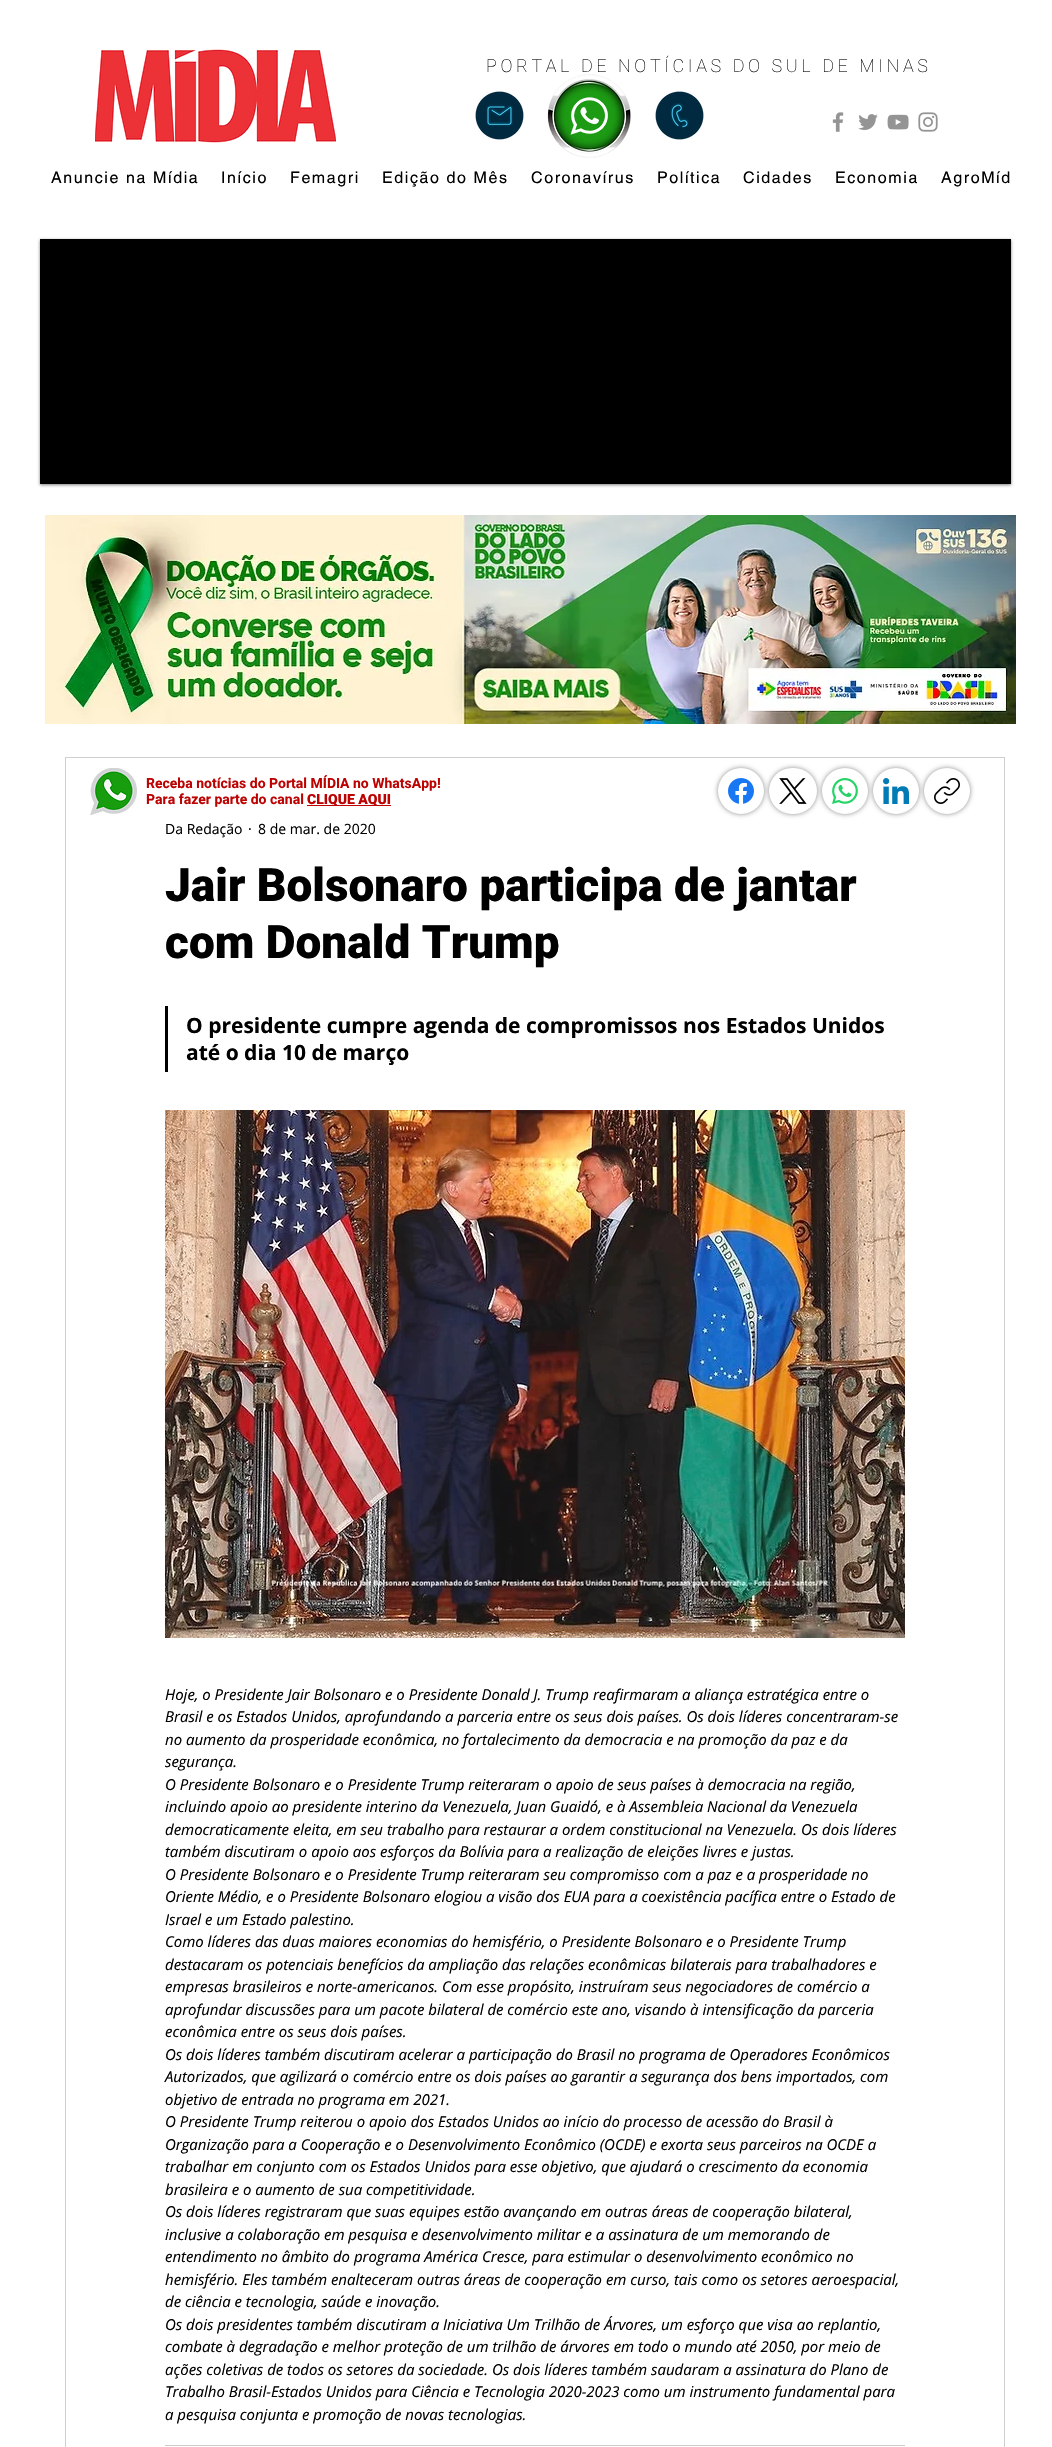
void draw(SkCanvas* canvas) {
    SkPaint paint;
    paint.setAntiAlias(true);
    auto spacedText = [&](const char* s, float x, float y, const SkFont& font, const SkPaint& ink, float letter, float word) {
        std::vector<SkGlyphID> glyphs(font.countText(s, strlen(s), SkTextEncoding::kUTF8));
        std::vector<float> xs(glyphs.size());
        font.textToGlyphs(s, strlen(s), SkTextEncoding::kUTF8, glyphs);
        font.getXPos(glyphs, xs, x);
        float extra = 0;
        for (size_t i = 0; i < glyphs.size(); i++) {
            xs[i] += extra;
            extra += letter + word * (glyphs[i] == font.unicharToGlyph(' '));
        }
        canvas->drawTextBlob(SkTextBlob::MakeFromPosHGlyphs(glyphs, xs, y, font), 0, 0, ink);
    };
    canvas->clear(0xFFFFFFFF);
    canvas->drawImageRect(SkImages::DeferredFromEncodedData(SkData::MakeFromFileName("img1.png")), SkRect::MakeXYWH(95, 49, 241, 94), SkSamplingOptions());
    SkFont font1(fontMgr->matchFamilyStyle("Roboto", SkFontStyle(100, SkFontStyle::kNormal_Width, SkFontStyle::kUpright_Slant)), 18);
    font1.setSubpixel(true);
    paint.setColor(0xFF000000);
    spacedText("PORTAL DE NOTÍCIAS DO SUL DE MINAS", 486, 72, font1, paint, 3.6f, 0);
    canvas->drawImageRect(SkImages::DeferredFromEncodedData(SkData::MakeFromFileName("img2.png")), SkRect::MakeXYWH(475, 91, 49, 49), SkSamplingOptions());
    canvas->drawImageRect(SkImages::DeferredFromEncodedData(SkData::MakeFromFileName("img3.png")), SkRect::MakeXYWH(547, 74, 84, 84), SkSamplingOptions());
    canvas->drawImageRect(SkImages::DeferredFromEncodedData(SkData::MakeFromFileName("img4.png")), SkRect::MakeXYWH(655, 91, 49, 49), SkSamplingOptions());
    canvas->drawImageRect(SkImages::DeferredFromEncodedData(SkData::MakeFromFileName("img5.png")), SkRect::MakeXYWH(832, 112, 12, 20), SkSamplingOptions());
    canvas->drawImageRect(SkImages::DeferredFromEncodedData(SkData::MakeFromFileName("img6.png")), SkRect::MakeXYWH(858, 114, 20, 17), SkSamplingOptions());
    canvas->drawImageRect(SkImages::DeferredFromEncodedData(SkData::MakeFromFileName("img7.png")), SkRect::MakeXYWH(887, 114, 22, 16), SkSamplingOptions());
    canvas->drawImageRect(SkImages::DeferredFromEncodedData(SkData::MakeFromFileName("img8.png")), SkRect::MakeXYWH(918, 112, 20, 20), SkSamplingOptions());
    SkFont font2(fontMgr->matchFamilyStyle("helvetica", SkFontStyle::Normal()), 16);
    font2.setSubpixel(true);
    spacedText("Anuncie na Mídia", 51, 183, font2, paint, 1.6f, 0);
    spacedText("Início", 221, 183, font2, paint, 1.6f, 0);
    spacedText("Femagri", 290, 183, font2, paint, 1.6f, 0);
    spacedText("Edição do Mês", 382, 183, font2, paint, 1.6f, 0);
    spacedText("Coronavírus", 531, 183, font2, paint, 1.6f, 0);
    spacedText("Política", 657, 183, font2, paint, 1.6f, 0);
    spacedText("Cidades", 743, 183, font2, paint, 1.6f, 0);
    spacedText("Economia", 835, 183, font2, paint, 1.6f, 0);
    spacedText("AgroMíd", 941, 183, font2, paint, 1.6f, 0);
    paint.setColor(0x80000000);
    paint.setMaskFilter(SkMaskFilter::MakeBlur(kNormal_SkBlurStyle, 1.5f));
    canvas->drawRect(SkRect::MakeXYWH(40, 240, 971, 245), paint);
    paint.setMaskFilter(nullptr);
    paint.setColor(0xFF000000);
    canvas->drawRect(SkRect::MakeXYWH(40, 239, 971, 245), paint);
    canvas->drawImageRect(SkImages::DeferredFromEncodedData(SkData::MakeFromFileName("img9.png")), SkRect::MakeXYWH(45, 515, 971, 209), SkSamplingOptions());
    paint.setStyle(SkPaint::kStroke_Style);
    paint.setStrokeWidth(1);
    paint.setColor(0xFFCFCFCF);
    canvas->drawRect(SkRect::MakeXYWH(65.5f, 757.5f, 939, 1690), paint);
    canvas->drawImageRect(SkImages::DeferredFromEncodedData(SkData::MakeFromFileName("img10.png")), SkRect::MakeXYWH(90, 768, 47, 47), SkSamplingOptions());
    SkFont font3(fontMgr->matchFamilyStyle("Roboto", SkFontStyle::Bold()), 14);
    font3.setSubpixel(true);
    paint.setStyle(SkPaint::kFill_Style);
    paint.setColor(0xFFBD0202);
    canvas->drawString("Receba notícias do Portal MÍDIA no WhatsApp!", 146, 788, font3, paint);
    canvas->drawString("Para fazer parte do canal", 146, 804, font3, paint);
    canvas->drawRect(SkRect::MakeXYWH(307, 805, 84, 1), paint);
    SkFont font4(fontMgr->matchFamilyStyle("Roboto", SkFontStyle(900, SkFontStyle::kNormal_Width, SkFontStyle::kUpright_Slant)), 14);
    font4.setSubpixel(true);
    canvas->drawString("CLIQUE AQUI", 307, 804, font4, paint);
    paint.setColor(0x73000000);
    paint.setMaskFilter(SkMaskFilter::MakeBlur(kNormal_SkBlurStyle, 2.5f));
    canvas->drawRoundRect(SkRect::MakeXYWH(718, 768, 46, 46), 23, 23, paint);
    paint.setMaskFilter(nullptr);
    paint.setColor(0xFFFFFFFF);
    canvas->drawCircle(741, 791, 23, paint);
    canvas->drawImageRect(SkImages::DeferredFromEncodedData(SkData::MakeFromFileName("img11.png")), SkRect::MakeXYWH(728, 778, 26, 26), SkSamplingOptions());
    paint.setColor(0x73000000);
    paint.setMaskFilter(SkMaskFilter::MakeBlur(kNormal_SkBlurStyle, 2.5f));
    canvas->drawRoundRect(SkRect::MakeXYWH(769, 768, 48, 46), 23, 23, paint);
    paint.setMaskFilter(nullptr);
    paint.setColor(0xFFFFFFFF);
    canvas->drawRoundRect(SkRect::MakeXYWH(769, 768, 48, 46), 23, 23, paint);
    canvas->drawImageRect(SkImages::DeferredFromEncodedData(SkData::MakeFromFileName("img12.png")), SkRect::MakeXYWH(779, 778, 28, 26), SkSamplingOptions());
    paint.setColor(0x73000000);
    paint.setMaskFilter(SkMaskFilter::MakeBlur(kNormal_SkBlurStyle, 2.5f));
    canvas->drawRoundRect(SkRect::MakeXYWH(822, 768, 46, 46), 23, 23, paint);
    paint.setMaskFilter(nullptr);
    paint.setColor(0xFFFFFFFF);
    canvas->drawCircle(845, 791, 23, paint);
    canvas->drawImageRect(SkImages::DeferredFromEncodedData(SkData::MakeFromFileName("img13.png")), SkRect::MakeXYWH(832, 778, 26, 26), SkSamplingOptions());
    paint.setColor(0x73000000);
    paint.setMaskFilter(SkMaskFilter::MakeBlur(kNormal_SkBlurStyle, 2.5f));
    canvas->drawRoundRect(SkRect::MakeXYWH(873, 768, 46, 46), 23, 23, paint);
    paint.setMaskFilter(nullptr);
    paint.setColor(0xFFFFFFFF);
    canvas->drawCircle(896, 791, 23, paint);
    canvas->drawImageRect(SkImages::DeferredFromEncodedData(SkData::MakeFromFileName("img14.png")), SkRect::MakeXYWH(883, 778, 26, 26), SkSamplingOptions());
    paint.setColor(0x73000000);
    paint.setMaskFilter(SkMaskFilter::MakeBlur(kNormal_SkBlurStyle, 2.5f));
    canvas->drawRoundRect(SkRect::MakeXYWH(924, 768, 46, 46), 23, 23, paint);
    paint.setMaskFilter(nullptr);
    paint.setColor(0xFFFFFFFF);
    canvas->drawCircle(947, 791, 23, paint);
    canvas->drawImageRect(SkImages::DeferredFromEncodedData(SkData::MakeFromFileName("img15.png")), SkRect::MakeXYWH(934, 778, 26, 26), SkSamplingOptions());
    SkFont font5(fontMgr->matchFamilyStyle("Open Sans", SkFontStyle::Normal()), 14);
    font5.setSubpixel(true);
    paint.setColor(0xFF000000);
    canvas->drawString("Da Redação", 165, 834, font5, paint);
    canvas->drawString("·", 248, 834, font5, paint);
    canvas->drawString("8 de mar. de 2020", 258, 834, font5, paint);
    SkFont font6(fontMgr->matchFamilyStyle("Roboto", SkFontStyle(900, SkFontStyle::kNormal_Width, SkFontStyle::kUpright_Slant)), 46);
    font6.setSubpixel(true);
    canvas->drawString("Jair Bolsonaro participa de jantar", 165, 901, font6, paint);
    canvas->drawString("com Donald Trump", 165, 958, font6, paint);
    canvas->drawRect(SkRect::MakeXYWH(165, 1006, 3, 66), paint);
    SkFont font7(fontMgr->matchFamilyStyle("Open Sans", SkFontStyle::Bold()), 21);
    font7.setSubpixel(true);
    canvas->drawString("O presidente cumpre agenda de compromissos nos Estados Unidos", 186, 1033, font7, paint);
    canvas->drawString("até o dia 10 de março", 186, 1060, font7, paint);
    canvas->drawImageRect(SkImages::DeferredFromEncodedData(SkData::MakeFromFileName("img16.png")), SkRect::MakeXYWH(165, 1110, 740, 528), SkSamplingOptions());
    SkFont font8(fontMgr->matchFamilyStyle("Open Sans", SkFontStyle::Italic()), 15);
    font8.setSubpixel(true);
    canvas->drawString("Hoje, o Presidente Jair Bolsonaro e o Presidente Donald J. Trump reafirmaram a aliança estratégica entre o", 165, 1700, font8, paint);
    canvas->drawString("Brasil e os Estados Unidos, aprofundando a parceria entre os seus dois países. Os dois líderes concentraram-se", 165, 1722, font8, paint);
    canvas->drawString("no aumento da prosperidade econômica, no fortalecimento da democracia e na promoção da paz e da", 165, 1745, font8, paint);
    canvas->drawString("segurança.", 165, 1767, font8, paint);
    canvas->drawString("O Presidente Bolsonaro e o Presidente Trump reiteraram o apoio de seus países à democracia na região,", 165, 1790, font8, paint);
    canvas->drawString("incluindo apoio ao presidente interino da Venezuela, Juan Guaidó, e à Assembleia Nacional da Venezuela", 165, 1812, font8, paint);
    canvas->drawString("democraticamente eleita, em seu trabalho para restaurar a ordem constitucional na Venezuela. Os dois líderes", 165, 1835, font8, paint);
    canvas->drawString("também discutiram o apoio aos esforços da Bolívia para a realização de eleições livres e justas.", 165, 1857, font8, paint);
    canvas->drawString("O Presidente Bolsonaro e o Presidente Trump reiteraram seu compromisso com a paz e a prosperidade no", 165, 1880, font8, paint);
    canvas->drawString("Oriente Médio, e o Presidente Bolsonaro elogiou a visão dos EUA para a coexistência pacífica entre o Estado de", 165, 1902, font8, paint);
    canvas->drawString("Israel e um Estado palestino.", 165, 1925, font8, paint);
    canvas->drawString("Como líderes das duas maiores economias do hemisfério, o Presidente Bolsonaro e o Presidente Trump", 165, 1947, font8, paint);
    canvas->drawString("destacaram os potenciais benefícios da ampliação das relações econômicas bilaterais para trabalhadores e", 165, 1970, font8, paint);
    canvas->drawString("empresas brasileiros e norte-americanos. Com esse propósito, instruíram seus negociadores de comércio a", 165, 1992, font8, paint);
    canvas->drawString("aprofundar discussões para um pacote bilateral de comércio este ano, visando à intensificação da parceria", 165, 2015, font8, paint);
    canvas->drawString("econômica entre os seus dois países.", 165, 2037, font8, paint);
    canvas->drawString("Os dois líderes também discutiram acelerar a participação do Brasil no programa de Operadores Econômicos", 165, 2060, font8, paint);
    canvas->drawString("Autorizados, que agilizará o comércio entre os dois países ao garantir a segurança dos bens importados, com", 165, 2082, font8, paint);
    canvas->drawString("objetivo de entrada no programa em 2021.", 165, 2105, font8, paint);
    canvas->drawString("O Presidente Trump reiterou o apoio dos Estados Unidos ao início do processo de acessão do Brasil à", 165, 2127, font8, paint);
    canvas->drawString("Organização para a Cooperação e o Desenvolvimento Econômico (OCDE) e exorta seus parceiros na OCDE a", 165, 2150, font8, paint);
    canvas->drawString("trabalhar em conjunto com os Estados Unidos para esse objetivo, que ajudará o crescimento da economia", 165, 2172, font8, paint);
    canvas->drawString("brasileira e o aumento de sua competitividade.", 165, 2195, font8, paint);
    canvas->drawString("Os dois líderes registraram que suas equipes estão avançando em outras áreas de cooperação bilateral,", 165, 2217, font8, paint);
    canvas->drawString("inclusive a colaboração em pesquisa e desenvolvimento militar e a assinatura de um memorando de", 165, 2240, font8, paint);
    canvas->drawString("entendimento no âmbito do programa América Cresce, para estimular o desenvolvimento econômico no", 165, 2262, font8, paint);
    canvas->drawString("hemisfério. Eles também enalteceram outras áreas de cooperação em curso, tais como os setores aeroespacial,", 165, 2285, font8, paint);
    canvas->drawString("de ciência e tecnologia, saúde e inovação.", 165, 2307, font8, paint);
    canvas->drawString("Os dois presidentes também discutiram a Iniciativa Um Trilhão de Árvores, um esforço que visa ao replantio,", 165, 2330, font8, paint);
    canvas->drawString("combate à degradação e melhor proteção de um trilhão de árvores em todo o mundo até 2050, por meio de", 165, 2352, font8, paint);
    canvas->drawString("ações coletivas de todos os setores da sociedade. Os dois líderes também saudaram a assinatura do Plano de", 165, 2375, font8, paint);
    canvas->drawString("Trabalho Brasil-Estados Unidos para Ciência e Tecnologia 2020-2023 como um instrumento fundamental para", 165, 2397, font8, paint);
    canvas->drawString("a pesquisa conjunta e promoção de novas tecnologias.", 165, 2420, font8, paint);
    paint.setColor(0xFFCCCCCC);
    canvas->drawRect(SkRect::MakeXYWH(165, 2445, 740, 1), paint);
}
